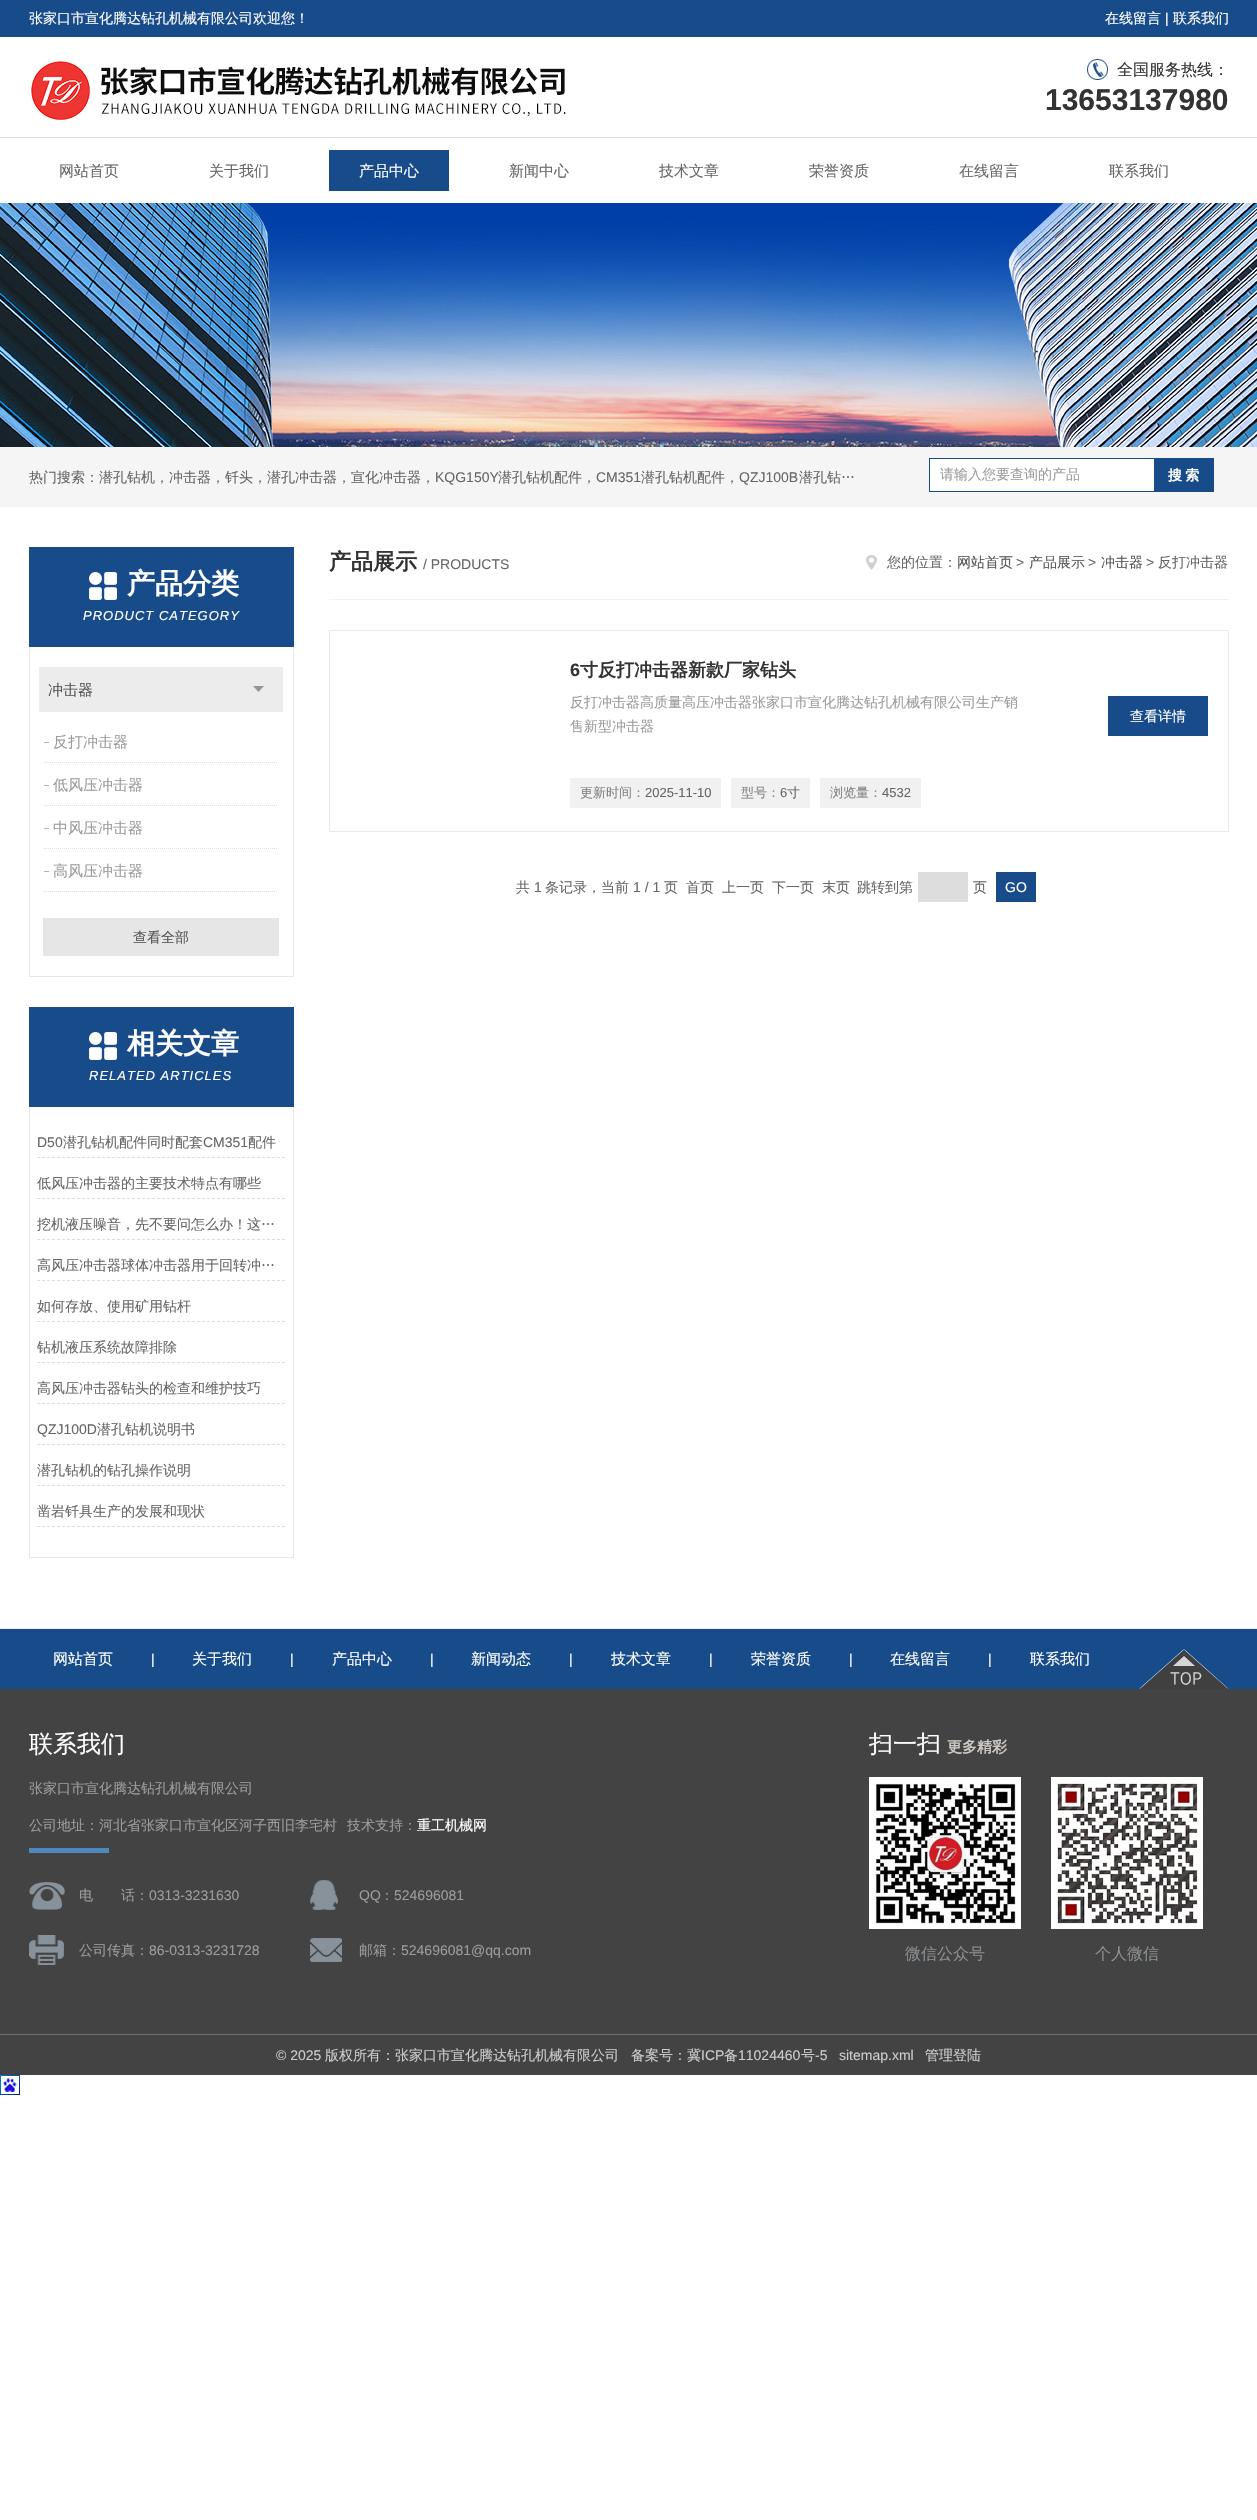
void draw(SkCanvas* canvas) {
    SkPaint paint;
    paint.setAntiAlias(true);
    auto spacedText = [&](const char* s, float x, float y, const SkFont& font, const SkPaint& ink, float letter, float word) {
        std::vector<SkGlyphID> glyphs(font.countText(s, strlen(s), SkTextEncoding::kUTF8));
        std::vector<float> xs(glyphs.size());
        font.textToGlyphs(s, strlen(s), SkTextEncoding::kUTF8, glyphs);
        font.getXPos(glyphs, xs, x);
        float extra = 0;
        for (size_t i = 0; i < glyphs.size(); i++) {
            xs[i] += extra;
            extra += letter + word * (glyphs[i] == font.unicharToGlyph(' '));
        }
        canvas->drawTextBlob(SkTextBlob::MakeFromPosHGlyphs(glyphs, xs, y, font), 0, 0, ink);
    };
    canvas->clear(0xFFFFFFFF);
    paint.setColor(0xFF184B8A);
    canvas->drawRect(SkRect::MakeXYWH(0, 0, 1257, 37), paint);
    SkFont font1(fontMgr->matchFamilyStyle("WenQuanYi Zen Hei", SkFontStyle(500, SkFontStyle::kNormal_Width, SkFontStyle::kUpright_Slant)), 14);
    font1.setSubpixel(true);
    paint.setColor(0xFFFFFFFF);
    canvas->drawString("张家口市宣化腾达钻孔机械有限公司欢迎您！", 29, 23, font1, paint);
    canvas->drawString("在线留言", 1105, 23, font1, paint);
    SkFont font2(fontMgr->matchFamilyStyle("Liberation Sans", SkFontStyle::Normal()), 14);
    font2.setSubpixel(true);
    canvas->drawString("|", 1165, 23, font2, paint);
    canvas->drawString("联系我们", 1173, 23, font1, paint);
    canvas->drawImageRect(SkImages::DeferredFromEncodedData(SkData::MakeFromFileName("img1.png")), SkRect::MakeXYWH(31, 61, 535, 59), SkSamplingOptions());
    canvas->drawImageRect(SkImages::DeferredFromEncodedData(SkData::MakeFromFileName("img2.png")), SkRect::MakeXYWH(1087, 59, 21, 21), SkSamplingOptions());
    SkFont font3(fontMgr->matchFamilyStyle("WenQuanYi Zen Hei", SkFontStyle(500, SkFontStyle::kNormal_Width, SkFontStyle::kUpright_Slant)), 16);
    font3.setSubpixel(true);
    paint.setColor(0xFF333333);
    canvas->drawString("全国服务热线：", 1117, 75, font3, paint);
    SkFont font4(fontMgr->matchFamilyStyle("Liberation Sans", SkFontStyle::Bold()), 30);
    font4.setSubpixel(true);
    canvas->drawString("13653137980", 1045, 110, font4, paint);
    paint.setColor(0xFFDDDDDD);
    canvas->drawRect(SkRect::MakeXYWH(0, 137, 1257, 1), paint);
    SkFont font5(fontMgr->matchFamilyStyle("WenQuanYi Zen Hei", SkFontStyle(500, SkFontStyle::kNormal_Width, SkFontStyle::kUpright_Slant)), 15);
    font5.setSubpixel(true);
    paint.setColor(0xFF666666);
    canvas->drawString("网站首页", 59, 176, font5, paint);
    canvas->drawString("关于我们", 209, 176, font5, paint);
    paint.setColor(0xFF184B8A);
    canvas->drawRect(SkRect::MakeXYWH(329, 150, 120, 41), paint);
    paint.setColor(0xFFFFFFFF);
    canvas->drawString("产品中心", 359, 176, font5, paint);
    paint.setColor(0xFF666666);
    canvas->drawString("新闻中心", 509, 176, font5, paint);
    canvas->drawString("技术文章", 659, 176, font5, paint);
    canvas->drawString("荣誉资质", 809, 176, font5, paint);
    canvas->drawString("在线留言", 959, 176, font5, paint);
    canvas->drawString("联系我们", 1109, 176, font5, paint);
    canvas->drawImageRect(SkImages::DeferredFromEncodedData(SkData::MakeFromFileName("img3.png")), SkRect::MakeXYWH(0, 203, 1257, 244), SkSamplingOptions());
    paint.setColor(0xFFF5F5F5);
    canvas->drawRect(SkRect::MakeXYWH(0, 447, 1257, 60), paint);
    paint.setColor(0xFF666666);
    canvas->drawString("热门搜索：潜孔钻机，冲击器，钎头，潜孔冲击器，宣化冲击器，", 29, 482, font1, paint);
    canvas->drawString("KQG150Y", 435, 482, font2, paint);
    canvas->drawString("潜孔钻机配件，", 498, 482, font1, paint);
    canvas->drawString("CM351", 596, 482, font2, paint);
    canvas->drawString("潜孔钻机配件，", 641, 482, font1, paint);
    canvas->drawString("QZJ100B", 739, 482, font2, paint);
    canvas->drawString("潜孔钻…", 799, 482, font1, paint);
    paint.setColor(0xFFFFFFFF);
    canvas->drawRect(SkRect::MakeXYWH(930, 459, 224, 32), paint);
    paint.setColor(0xFF184B8A);
    canvas->drawRect(SkRect::MakeXYWH(929, 458, 225, 1), paint);
    canvas->drawRect(SkRect::MakeXYWH(929, 491, 225, 1), paint);
    canvas->drawRect(SkRect::MakeXYWH(929, 458, 1, 34), paint);
    paint.setColor(0xFF9C9C9C);
    canvas->drawString("请输入您要查询的产品", 940, 479, font1, paint);
    paint.setColor(0xFF184B8A);
    canvas->drawRect(SkRect::MakeXYWH(1154, 458, 60, 34), paint);
    SkFont font6(fontMgr->matchFamilyStyle("WenQuanYi Zen Hei", SkFontStyle::Bold()), 14);
    font6.setSubpixel(true);
    paint.setColor(0xFFFFFFFF);
    spacedText("搜 索", 1168, 480, font6, paint, 0, -1);
    paint.setColor(0xFF184B8A);
    canvas->drawRect(SkRect::MakeXYWH(29, 547, 265, 100), paint);
    canvas->drawImageRect(SkImages::DeferredFromEncodedData(SkData::MakeFromFileName("img4.png")), SkRect::MakeXYWH(89, 572, 28, 28), SkSamplingOptions());
    SkFont font7(fontMgr->matchFamilyStyle("WenQuanYi Zen Hei", SkFontStyle::Bold()), 28);
    font7.setSubpixel(true);
    paint.setColor(0xFFFFFFFF);
    canvas->drawString("产品分类", 127, 593, font7, paint);
    SkFont font8(fontMgr->matchFamilyStyle("Liberation Sans", SkFontStyle::Italic()), 13);
    font8.setSubpixel(true);
    spacedText("PRODUCT CATEGORY", 83, 620, font8, paint, 1, 0);
    paint.setColor(0xFFE8E8E8);
    canvas->drawRect(SkRect::MakeXYWH(293, 647, 1, 330), paint);
    canvas->drawRect(SkRect::MakeXYWH(29, 976, 265, 1), paint);
    canvas->drawRect(SkRect::MakeXYWH(29, 647, 1, 330), paint);
    paint.setColor(0xFFECECEC);
    canvas->drawRect(SkRect::MakeXYWH(39, 667, 244, 45), paint);
    paint.setColor(0xFF555555);
    canvas->drawString("冲击器", 48, 695, font5, paint);
    canvas->drawImageRect(SkImages::DeferredFromEncodedData(SkData::MakeFromFileName("img5.png")), SkRect::MakeXYWH(253, 686, 11, 6), SkSamplingOptions());
    paint.setStyle(SkPaint::kStroke_Style);
    paint.setStrokeWidth(1);
    paint.setColor(0xFFDEDEDE);
    paint.setPathEffect(SkDashPathEffect::Make({{1, 1}}, 0));
    canvas->drawPath(SkPathBuilder().moveTo(44, 762.5f).lineTo(278, 762.5f).detach(), paint);
    paint.setPathEffect(nullptr);
    paint.setStyle(SkPaint::kFill_Style);
    paint.setColor(0xFFB3B3B3);
    canvas->drawRect(SkRect::MakeXYWH(44, 742, 5, 1), paint);
    paint.setColor(0xFF9C9C9C);
    canvas->drawString("反打冲击器", 53, 747, font5, paint);
    paint.setStyle(SkPaint::kStroke_Style);
    paint.setColor(0xFFDEDEDE);
    paint.setPathEffect(SkDashPathEffect::Make({{1, 1}}, 0));
    canvas->drawPath(SkPathBuilder().moveTo(44, 805.5f).lineTo(278, 805.5f).detach(), paint);
    paint.setPathEffect(nullptr);
    paint.setStyle(SkPaint::kFill_Style);
    paint.setColor(0xFFB3B3B3);
    canvas->drawRect(SkRect::MakeXYWH(44, 785, 5, 1), paint);
    paint.setColor(0xFF9C9C9C);
    canvas->drawString("低风压冲击器", 53, 790, font5, paint);
    paint.setStyle(SkPaint::kStroke_Style);
    paint.setColor(0xFFDEDEDE);
    paint.setPathEffect(SkDashPathEffect::Make({{1, 1}}, 0));
    canvas->drawPath(SkPathBuilder().moveTo(44, 848.5f).lineTo(278, 848.5f).detach(), paint);
    paint.setPathEffect(nullptr);
    paint.setStyle(SkPaint::kFill_Style);
    paint.setColor(0xFFB3B3B3);
    canvas->drawRect(SkRect::MakeXYWH(44, 828, 5, 1), paint);
    paint.setColor(0xFF9C9C9C);
    canvas->drawString("中风压冲击器", 53, 833, font5, paint);
    paint.setStyle(SkPaint::kStroke_Style);
    paint.setColor(0xFFDEDEDE);
    paint.setPathEffect(SkDashPathEffect::Make({{1, 1}}, 0));
    canvas->drawPath(SkPathBuilder().moveTo(44, 891.5f).lineTo(278, 891.5f).detach(), paint);
    paint.setPathEffect(nullptr);
    paint.setStyle(SkPaint::kFill_Style);
    paint.setColor(0xFFB3B3B3);
    canvas->drawRect(SkRect::MakeXYWH(44, 871, 5, 1), paint);
    paint.setColor(0xFF9C9C9C);
    canvas->drawString("高风压冲击器", 53, 876, font5, paint);
    paint.setColor(0xFFE6E6E6);
    canvas->drawRect(SkRect::MakeXYWH(43, 918, 236, 38), paint);
    paint.setColor(0xFF555555);
    canvas->drawString("查看全部", 133, 942, font1, paint);
    paint.setColor(0xFF184B8A);
    canvas->drawRect(SkRect::MakeXYWH(29, 1007, 265, 100), paint);
    canvas->drawImageRect(SkImages::DeferredFromEncodedData(SkData::MakeFromFileName("img4.png")), SkRect::MakeXYWH(89, 1032, 28, 28), SkSamplingOptions());
    paint.setColor(0xFFFFFFFF);
    canvas->drawString("相关文章", 127, 1053, font7, paint);
    spacedText("RELATED ARTICLES", 89, 1080, font8, paint, 1, 0);
    paint.setColor(0xFFE8E8E8);
    canvas->drawRect(SkRect::MakeXYWH(293, 1107, 1, 451), paint);
    canvas->drawRect(SkRect::MakeXYWH(29, 1557, 265, 1), paint);
    canvas->drawRect(SkRect::MakeXYWH(29, 1107, 1, 451), paint);
    paint.setStyle(SkPaint::kStroke_Style);
    paint.setColor(0xFFDEDEDE);
    paint.setPathEffect(SkDashPathEffect::Make({{3, 2}}, 0));
    canvas->drawPath(SkPathBuilder().moveTo(37, 1157.5f).lineTo(285, 1157.5f).detach(), paint);
    paint.setPathEffect(nullptr);
    paint.setStyle(SkPaint::kFill_Style);
    paint.setColor(0xFF666666);
    canvas->drawString("D50", 37, 1147, font2, paint);
    canvas->drawString("潜孔钻机配件同时配套", 63, 1147, font1, paint);
    canvas->drawString("CM351", 203, 1147, font2, paint);
    canvas->drawString("配件", 248, 1147, font1, paint);
    paint.setStyle(SkPaint::kStroke_Style);
    paint.setColor(0xFFDEDEDE);
    paint.setPathEffect(SkDashPathEffect::Make({{3, 2}}, 0));
    canvas->drawPath(SkPathBuilder().moveTo(37, 1198.5f).lineTo(285, 1198.5f).detach(), paint);
    paint.setPathEffect(nullptr);
    paint.setStyle(SkPaint::kFill_Style);
    paint.setColor(0xFF666666);
    canvas->drawString("低风压冲击器的主要技术特点有哪些", 37, 1188, font1, paint);
    paint.setStyle(SkPaint::kStroke_Style);
    paint.setColor(0xFFDEDEDE);
    paint.setPathEffect(SkDashPathEffect::Make({{3, 2}}, 0));
    canvas->drawPath(SkPathBuilder().moveTo(37, 1239.5f).lineTo(285, 1239.5f).detach(), paint);
    paint.setPathEffect(nullptr);
    paint.setStyle(SkPaint::kFill_Style);
    paint.setColor(0xFF666666);
    canvas->drawString("挖机液压噪音，先不要问怎么办！这…", 37, 1229, font1, paint);
    paint.setStyle(SkPaint::kStroke_Style);
    paint.setColor(0xFFDEDEDE);
    paint.setPathEffect(SkDashPathEffect::Make({{3, 2}}, 0));
    canvas->drawPath(SkPathBuilder().moveTo(37, 1280.5f).lineTo(285, 1280.5f).detach(), paint);
    paint.setPathEffect(nullptr);
    paint.setStyle(SkPaint::kFill_Style);
    paint.setColor(0xFF666666);
    canvas->drawString("高风压冲击器球体冲击器用于回转冲…", 37, 1270, font1, paint);
    paint.setStyle(SkPaint::kStroke_Style);
    paint.setColor(0xFFDEDEDE);
    paint.setPathEffect(SkDashPathEffect::Make({{3, 2}}, 0));
    canvas->drawPath(SkPathBuilder().moveTo(37, 1321.5f).lineTo(285, 1321.5f).detach(), paint);
    paint.setPathEffect(nullptr);
    paint.setStyle(SkPaint::kFill_Style);
    paint.setColor(0xFF666666);
    canvas->drawString("如何存放、使用矿用钻杆", 37, 1311, font1, paint);
    paint.setStyle(SkPaint::kStroke_Style);
    paint.setColor(0xFFDEDEDE);
    paint.setPathEffect(SkDashPathEffect::Make({{3, 2}}, 0));
    canvas->drawPath(SkPathBuilder().moveTo(37, 1362.5f).lineTo(285, 1362.5f).detach(), paint);
    paint.setPathEffect(nullptr);
    paint.setStyle(SkPaint::kFill_Style);
    paint.setColor(0xFF666666);
    canvas->drawString("钻机液压系统故障排除", 37, 1352, font1, paint);
    paint.setStyle(SkPaint::kStroke_Style);
    paint.setColor(0xFFDEDEDE);
    paint.setPathEffect(SkDashPathEffect::Make({{3, 2}}, 0));
    canvas->drawPath(SkPathBuilder().moveTo(37, 1403.5f).lineTo(285, 1403.5f).detach(), paint);
    paint.setPathEffect(nullptr);
    paint.setStyle(SkPaint::kFill_Style);
    paint.setColor(0xFF666666);
    canvas->drawString("高风压冲击器钻头的检查和维护技巧", 37, 1393, font1, paint);
    paint.setStyle(SkPaint::kStroke_Style);
    paint.setColor(0xFFDEDEDE);
    paint.setPathEffect(SkDashPathEffect::Make({{3, 2}}, 0));
    canvas->drawPath(SkPathBuilder().moveTo(37, 1444.5f).lineTo(285, 1444.5f).detach(), paint);
    paint.setPathEffect(nullptr);
    paint.setStyle(SkPaint::kFill_Style);
    paint.setColor(0xFF666666);
    canvas->drawString("QZJ100D", 37, 1434, font2, paint);
    canvas->drawString("潜孔钻机说明书", 97, 1434, font1, paint);
    paint.setStyle(SkPaint::kStroke_Style);
    paint.setColor(0xFFDEDEDE);
    paint.setPathEffect(SkDashPathEffect::Make({{3, 2}}, 0));
    canvas->drawPath(SkPathBuilder().moveTo(37, 1485.5f).lineTo(285, 1485.5f).detach(), paint);
    paint.setPathEffect(nullptr);
    paint.setStyle(SkPaint::kFill_Style);
    paint.setColor(0xFF666666);
    canvas->drawString("潜孔钻机的钻孔操作说明", 37, 1475, font1, paint);
    paint.setStyle(SkPaint::kStroke_Style);
    paint.setColor(0xFFDEDEDE);
    paint.setPathEffect(SkDashPathEffect::Make({{3, 2}}, 0));
    canvas->drawPath(SkPathBuilder().moveTo(37, 1526.5f).lineTo(285, 1526.5f).detach(), paint);
    paint.setPathEffect(nullptr);
    paint.setStyle(SkPaint::kFill_Style);
    paint.setColor(0xFF666666);
    canvas->drawString("凿岩钎具生产的发展和现状", 37, 1516, font1, paint);
    paint.setColor(0xFFF1F1F1);
    canvas->drawRect(SkRect::MakeXYWH(329, 599, 900, 1), paint);
    SkFont font9(fontMgr->matchFamilyStyle("WenQuanYi Zen Hei", SkFontStyle::Bold()), 22);
    font9.setSubpixel(true);
    paint.setColor(0xFF333333);
    canvas->drawString("产品展示", 329, 569, font9, paint);
    paint.setColor(0xFF666666);
    canvas->drawString("/ PRODUCTS", 423, 569, font2, paint);
    canvas->drawImageRect(SkImages::DeferredFromEncodedData(SkData::MakeFromFileName("img6.png")), SkRect::MakeXYWH(866, 555, 11, 15), SkSamplingOptions());
    canvas->drawString("您的位置：", 887, 567, font1, paint);
    paint.setColor(0xFF555555);
    canvas->drawString("网站首页", 957, 567, font1, paint);
    paint.setColor(0xFF666666);
    canvas->drawString(">", 1016, 567, font2, paint);
    paint.setColor(0xFF555555);
    canvas->drawString("产品展示", 1029, 567, font1, paint);
    paint.setColor(0xFF666666);
    canvas->drawString(">", 1088, 567, font2, paint);
    paint.setColor(0xFF555555);
    canvas->drawString("冲击器", 1101, 567, font1, paint);
    paint.setColor(0xFF666666);
    canvas->drawString(">", 1146, 567, font2, paint);
    canvas->drawString("反打冲击器", 1158, 567, font1, paint);
    paint.setStyle(SkPaint::kStroke_Style);
    paint.setColor(0xFFEAEAEA);
    canvas->drawRect(SkRect::MakeXYWH(329.5f, 630.5f, 899, 201), paint);
    SkFont font10(fontMgr->matchFamilyStyle("Liberation Sans", SkFontStyle::Bold()), 18);
    font10.setSubpixel(true);
    paint.setStyle(SkPaint::kFill_Style);
    paint.setColor(0xFF333333);
    canvas->drawString("6", 570, 676, font10, paint);
    SkFont font11(fontMgr->matchFamilyStyle("WenQuanYi Zen Hei", SkFontStyle::Bold()), 18);
    font11.setSubpixel(true);
    canvas->drawString("寸反打冲击器新款厂家钻头", 580, 676, font11, paint);
    paint.setColor(0xFF9C9C9C);
    canvas->drawString("反打冲击器高质量高压冲击器张家口市宣化腾达钻孔机械有限公司生产销", 570, 707, font1, paint);
    canvas->drawString("售新型冲击器", 570, 731, font1, paint);
    paint.setColor(0xFFF1F1F1);
    canvas->drawRect(SkRect::MakeXYWH(570, 778, 151, 30), paint);
    SkFont font12(fontMgr->matchFamilyStyle("WenQuanYi Zen Hei", SkFontStyle(500, SkFontStyle::kNormal_Width, SkFontStyle::kUpright_Slant)), 13);
    font12.setSubpixel(true);
    paint.setColor(0xFF828282);
    canvas->drawString("更新时间：", 580, 797, font12, paint);
    SkFont font13(fontMgr->matchFamilyStyle("Liberation Sans", SkFontStyle::Normal()), 13);
    font13.setSubpixel(true);
    paint.setColor(0xFF666666);
    canvas->drawString("2025-11-10", 645, 797, font13, paint);
    paint.setColor(0xFFF1F1F1);
    canvas->drawRect(SkRect::MakeXYWH(731, 778, 79, 30), paint);
    paint.setColor(0xFF828282);
    canvas->drawString("型号：", 741, 797, font12, paint);
    paint.setColor(0xFF666666);
    canvas->drawString("6", 780, 797, font13, paint);
    canvas->drawString("寸", 787, 797, font12, paint);
    paint.setColor(0xFFF1F1F1);
    canvas->drawRect(SkRect::MakeXYWH(820, 778, 101, 30), paint);
    paint.setColor(0xFF828282);
    canvas->drawString("浏览量：", 830, 797, font12, paint);
    paint.setColor(0xFF666666);
    canvas->drawString("4532", 882, 797, font13, paint);
    paint.setColor(0xFF184B8A);
    canvas->drawRect(SkRect::MakeXYWH(1108, 696, 100, 40), paint);
    paint.setColor(0xFFFFFFFF);
    canvas->drawString("查看详情", 1130, 721, font1, paint);
    paint.setColor(0xFF666666);
    canvas->drawString("共", 516, 892, font1, paint);
    canvas->drawString("1", 534, 892, font2, paint);
    canvas->drawString("条记录，当前", 545, 892, font1, paint);
    canvas->drawString("1 / 1", 633, 892, font2, paint);
    canvas->drawString("页", 664, 892, font1, paint);
    canvas->drawString("首页", 686, 892, font1, paint);
    canvas->drawString("上一页", 722, 892, font1, paint);
    canvas->drawString("下一页", 772, 892, font1, paint);
    canvas->drawString("末页", 822, 892, font1, paint);
    canvas->drawString("跳转到第", 857, 892, font1, paint);
    paint.setColor(0xFFDDDDDD);
    canvas->drawRect(SkRect::MakeXYWH(918, 872, 50, 30), paint);
    paint.setColor(0xFF666666);
    canvas->drawString("页", 973, 892, font1, paint);
    paint.setColor(0xFF184B8A);
    canvas->drawRect(SkRect::MakeXYWH(996, 872, 40, 30), paint);
    paint.setColor(0xFFFFFFFF);
    canvas->drawString("GO", 1005, 892, font2, paint);
    paint.setColor(0xFF184B8A);
    canvas->drawRect(SkRect::MakeXYWH(0, 1629, 1257, 60), paint);
    paint.setColor(0xFFEEEEEE);
    canvas->drawRect(SkRect::MakeXYWH(0, 1628, 1257, 1), paint);
    paint.setColor(0xFFFFFFFF);
    canvas->drawString("网站首页", 53, 1664, font5, paint);
    canvas->drawString("|", 151, 1664, font2, paint);
    canvas->drawString("关于我们", 192, 1664, font5, paint);
    canvas->drawString("|", 290, 1664, font2, paint);
    canvas->drawString("产品中心", 332, 1664, font5, paint);
    canvas->drawString("|", 430, 1664, font2, paint);
    canvas->drawString("新闻动态", 471, 1664, font5, paint);
    canvas->drawString("|", 569, 1664, font2, paint);
    canvas->drawString("技术文章", 611, 1664, font5, paint);
    canvas->drawString("|", 709, 1664, font2, paint);
    canvas->drawString("荣誉资质", 751, 1664, font5, paint);
    canvas->drawString("|", 849, 1664, font2, paint);
    canvas->drawString("在线留言", 890, 1664, font5, paint);
    canvas->drawString("|", 988, 1664, font2, paint);
    canvas->drawString("联系我们", 1030, 1664, font5, paint);
    canvas->drawImageRect(SkImages::DeferredFromEncodedData(SkData::MakeFromFileName("img7.png")), SkRect::MakeXYWH(1139, 1649, 90, 40), SkSamplingOptions());
    paint.setColor(0xFF434343);
    canvas->drawRect(SkRect::MakeXYWH(0, 1689, 1257, 386), paint);
    SkFont font14(fontMgr->matchFamilyStyle("WenQuanYi Zen Hei", SkFontStyle(500, SkFontStyle::kNormal_Width, SkFontStyle::kUpright_Slant)), 24);
    font14.setSubpixel(true);
    paint.setColor(0xFFFFFFFF);
    canvas->drawString("联系我们", 29, 1752, font14, paint);
    paint.setColor(0xFF9C9C9C);
    canvas->drawString("张家口市宣化腾达钻孔机械有限公司", 29, 1793, font1, paint);
    canvas->drawString("公司地址：河北省张家口市宣化区河子西旧李宅村", 29, 1830, font1, paint);
    canvas->drawString("技术支持：", 347, 1830, font1, paint);
    paint.setColor(0xFFFFFFFF);
    canvas->drawString("重工机械网", 417, 1830, font1, paint);
    paint.setColor(0xFF4E89BE);
    canvas->drawRect(SkRect::MakeXYWH(29, 1848, 80, 5), paint);
    canvas->drawImageRect(SkImages::DeferredFromEncodedData(SkData::MakeFromFileName("img8.png")), SkRect::MakeXYWH(29, 1881, 36, 29), SkSamplingOptions());
    paint.setColor(0xFF9C9C9C);
    canvas->drawString("电　　话：", 79, 1900, font1, paint);
    canvas->drawString("0313-3231630", 149, 1900, font2, paint);
    canvas->drawImageRect(SkImages::DeferredFromEncodedData(SkData::MakeFromFileName("img9.png")), SkRect::MakeXYWH(309, 1880, 31, 30), SkSamplingOptions());
    canvas->drawString("QQ", 359, 1900, font2, paint);
    canvas->drawString("：", 380, 1900, font1, paint);
    canvas->drawString("524696081", 394, 1900, font2, paint);
    canvas->drawImageRect(SkImages::DeferredFromEncodedData(SkData::MakeFromFileName("img10.png")), SkRect::MakeXYWH(29, 1935, 37, 30), SkSamplingOptions());
    canvas->drawString("公司传真：", 79, 1955, font1, paint);
    canvas->drawString("86-0313-3231728", 149, 1955, font2, paint);
    canvas->drawImageRect(SkImages::DeferredFromEncodedData(SkData::MakeFromFileName("img11.png")), SkRect::MakeXYWH(309, 1937, 33, 25), SkSamplingOptions());
    canvas->drawString("邮箱：", 359, 1955, font1, paint);
    canvas->drawString("524696081@qq.com", 401, 1955, font2, paint);
    paint.setColor(0xFFFFFFFF);
    canvas->drawString("扫一扫", 869, 1752, font14, paint);
    SkFont font15(fontMgr->matchFamilyStyle("WenQuanYi Zen Hei", SkFontStyle::Bold()), 15);
    font15.setSubpixel(true);
    paint.setColor(0xFFCCC7C3);
    canvas->drawString("更多精彩", 947, 1752, font15, paint);
    canvas->drawImageRect(SkImages::DeferredFromEncodedData(SkData::MakeFromFileName("img12.png")), SkRect::MakeXYWH(869, 1777, 152, 152), SkSamplingOptions());
    paint.setColor(0xFF8A8F92);
    canvas->drawString("微信公众号", 905, 1959, font3, paint);
    canvas->drawImageRect(SkImages::DeferredFromEncodedData(SkData::MakeFromFileName("img13.png")), SkRect::MakeXYWH(1051, 1777, 152, 152), SkSamplingOptions());
    canvas->drawString("个人微信", 1095, 1959, font3, paint);
    paint.setColor(0xFF717171);
    canvas->drawRect(SkRect::MakeXYWH(0, 2034, 1257, 1), paint);
    paint.setColor(0xFFCCCCCC);
    canvas->drawString("© 2025", 276, 2060, font2, paint);
    canvas->drawString("版权所有：张家口市宣化腾达钻孔机械有限公司", 325, 2060, font1, paint);
    canvas->drawString("备案号：冀", 631, 2060, font1, paint);
    canvas->drawString("ICP", 701, 2060, font2, paint);
    canvas->drawString("备", 724, 2060, font1, paint);
    canvas->drawString("11024460", 738, 2060, font2, paint);
    canvas->drawString("号", 801, 2060, font1, paint);
    canvas->drawString("-5", 815, 2060, font2, paint);
    canvas->drawString("sitemap.xml", 839, 2060, font2, paint);
    canvas->drawString("管理登陆", 925, 2060, font1, paint);
    canvas->drawImageRect(SkImages::DeferredFromEncodedData(SkData::MakeFromFileName("img14.png")), SkRect::MakeXYWH(0, 2075, 20, 20), SkSamplingOptions());
}
